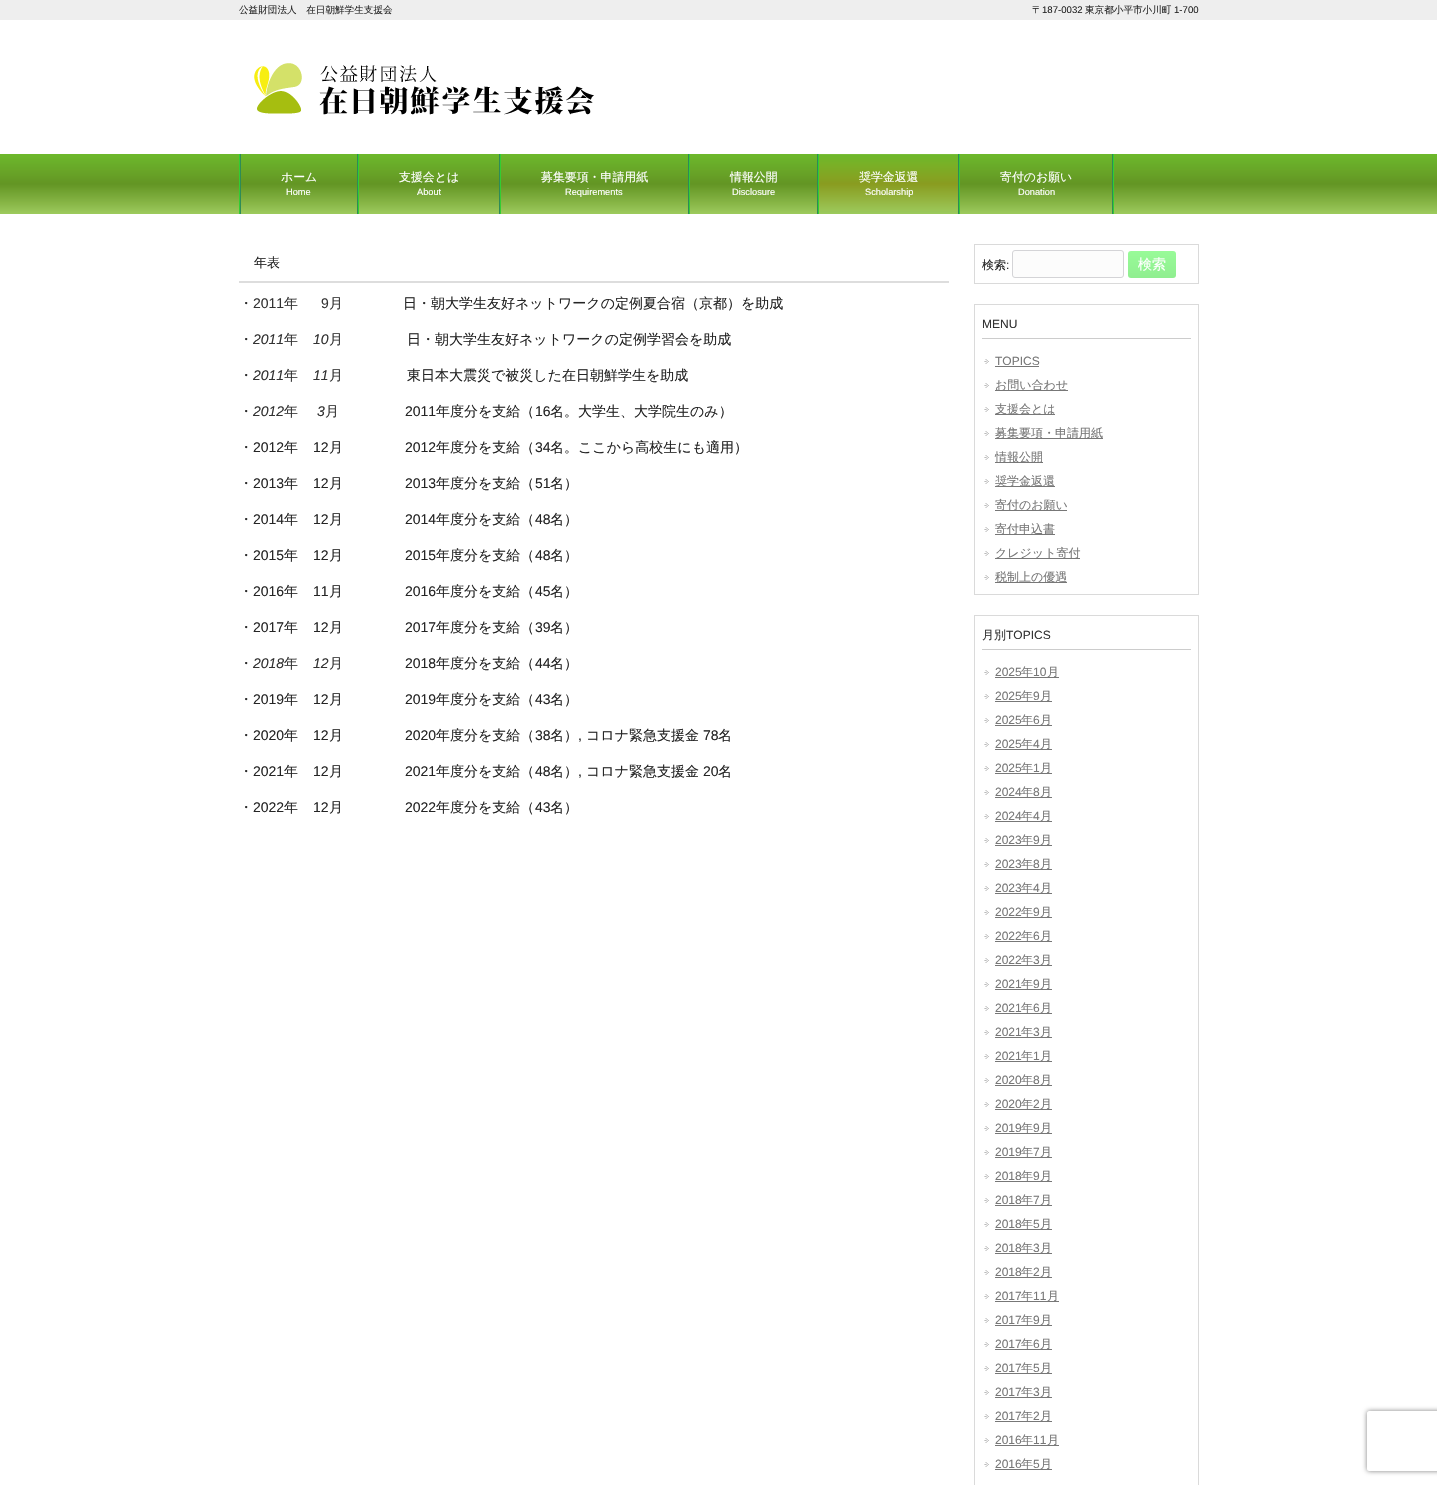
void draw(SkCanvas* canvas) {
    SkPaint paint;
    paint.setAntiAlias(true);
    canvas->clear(0xFFFFFFFF);
    paint.setColor(0xFFEEEEEE);
    canvas->drawRect(SkRect::MakeXYWH(0, 0, 1437, 20), paint);
    SkFont font1(fontMgr->matchFamilyStyle("WenQuanYi Zen Hei", SkFontStyle(500, SkFontStyle::kNormal_Width, SkFontStyle::kUpright_Slant)), 9.6f);
    font1.setSubpixel(true);
    paint.setColor(0xFF252525);
    canvas->drawString("公益財団法人　在日朝鮮学生支援会", 239, 13, font1, paint);
    canvas->drawString("〒", 1032, 13, font1, paint);
    SkFont font2(fontMgr->matchFamilyStyle("Liberation Sans", SkFontStyle::Normal()), 9.6f);
    font2.setSubpixel(true);
    canvas->drawString("187-0032", 1042, 13, font2, paint);
    canvas->drawString("東京都小平市小川町", 1085, 13, font1, paint);
    canvas->drawString("1-700", 1174, 13, font2, paint);
    canvas->drawImageRect(SkImages::DeferredFromEncodedData(SkData::MakeFromFileName("img1.png")), SkRect::MakeXYWH(254, 63, 340, 52), SkSamplingOptions());
    canvas->drawImageRect(SkImages::DeferredFromEncodedData(SkData::MakeFromFileName("img2.png")), SkRect::MakeXYWH(0, 154, 1437, 60), SkSamplingOptions());
    paint.setColor(0xFF32CD32);
    canvas->drawRect(SkRect::MakeXYWH(1113, 154, 1, 60), paint);
    canvas->drawRect(SkRect::MakeXYWH(239, 154, 1, 60), paint);
    paint.setColor(0xFF2E8B57);
    canvas->drawRect(SkRect::MakeXYWH(357, 154, 1, 60), paint);
    canvas->drawRect(SkRect::MakeXYWH(240, 154, 1, 60), paint);
    SkFont font3(fontMgr->matchFamilyStyle("WenQuanYi Zen Hei", SkFontStyle(500, SkFontStyle::kNormal_Width, SkFontStyle::kUpright_Slant)), 11.9f);
    font3.setSubpixel(true);
    paint.setColor(0xFFFFFFFF);
    canvas->drawString("ホーム", 281, 181, font3, paint);
    SkFont font4(fontMgr->matchFamilyStyle("Liberation Sans", SkFontStyle::Normal()), 9.25f);
    font4.setSubpixel(true);
    canvas->drawString("Home", 286, 195, font4, paint);
    paint.setColor(0xFF2E8B57);
    canvas->drawRect(SkRect::MakeXYWH(499, 154, 1, 60), paint);
    paint.setColor(0xFF32CD32);
    canvas->drawRect(SkRect::MakeXYWH(358, 154, 1, 60), paint);
    paint.setColor(0xFFFFFFFF);
    canvas->drawString("支援会とは", 399, 181, font3, paint);
    canvas->drawString("About", 417, 195, font4, paint);
    paint.setColor(0xFF2E8B57);
    canvas->drawRect(SkRect::MakeXYWH(688, 154, 1, 60), paint);
    paint.setColor(0xFF32CD32);
    canvas->drawRect(SkRect::MakeXYWH(500, 154, 1, 60), paint);
    paint.setColor(0xFFFFFFFF);
    canvas->drawString("募集要項・申請用紙", 541, 181, font3, paint);
    canvas->drawString("Requirements", 565, 195, font4, paint);
    paint.setColor(0xFF2E8B57);
    canvas->drawRect(SkRect::MakeXYWH(817, 154, 1, 60), paint);
    paint.setColor(0xFF32CD32);
    canvas->drawRect(SkRect::MakeXYWH(689, 154, 1, 60), paint);
    paint.setColor(0xFFFFFFFF);
    canvas->drawString("情報公開", 730, 181, font3, paint);
    canvas->drawString("Disclosure", 732, 195, font4, paint);
    canvas->drawImageRect(SkImages::DeferredFromEncodedData(SkData::MakeFromFileName("img3.png")), SkRect::MakeXYWH(819, 154, 139, 57), SkSamplingOptions());
    paint.setColor(0xFF2E8B57);
    canvas->drawRect(SkRect::MakeXYWH(958, 154, 1, 60), paint);
    paint.setColor(0xFF32CD32);
    canvas->drawRect(SkRect::MakeXYWH(818, 154, 1, 60), paint);
    paint.setColor(0xFFFFFFFF);
    canvas->drawString("奨学金返還", 859, 181, font3, paint);
    canvas->drawString("Scholarship", 865, 195, font4, paint);
    paint.setColor(0xFF2E8B57);
    canvas->drawRect(SkRect::MakeXYWH(1112, 154, 1, 60), paint);
    paint.setColor(0xFF32CD32);
    canvas->drawRect(SkRect::MakeXYWH(959, 154, 1, 60), paint);
    paint.setColor(0xFFFFFFFF);
    canvas->drawString("寄付のお願い", 1000, 181, font3, paint);
    canvas->drawString("Donation", 1018, 195, font4, paint);
    paint.setColor(0xFFDDDDDD);
    canvas->drawRect(SkRect::MakeXYWH(239, 281, 710, 2), paint);
    SkFont font5(fontMgr->matchFamilyStyle("WenQuanYi Zen Hei", SkFontStyle(500, SkFontStyle::kNormal_Width, SkFontStyle::kUpright_Slant)), 13);
    font5.setSubpixel(true);
    paint.setColor(0xFF252525);
    canvas->drawString("年表", 254, 267, font5, paint);
    SkFont font6(fontMgr->matchFamilyStyle("WenQuanYi Zen Hei", SkFontStyle(500, SkFontStyle::kNormal_Width, SkFontStyle::kUpright_Slant)), 14);
    font6.setSubpixel(true);
    canvas->drawString("・", 239, 308, font6, paint);
    SkFont font7(fontMgr->matchFamilyStyle("Liberation Sans", SkFontStyle::Normal()), 14);
    font7.setSubpixel(true);
    paint.setColor(0xFF333333);
    canvas->drawString("2011", 253, 308, font7, paint);
    canvas->drawString("年", 284, 308, font6, paint);
    canvas->drawString("9", 321, 308, font7, paint);
    canvas->drawString("月", 329, 308, font6, paint);
    paint.setColor(0xFF252525);
    canvas->drawString("日・朝大学生友好ネットワークの定例夏合宿（京都）を助成", 403, 308, font6, paint);
    canvas->drawString("・", 239, 344, font6, paint);
    SkFont font8(fontMgr->matchFamilyStyle("Liberation Sans", SkFontStyle::Italic()), 14);
    font8.setSubpixel(true);
    paint.setColor(0xFF333333);
    canvas->drawString("2011", 253, 344, font8, paint);
    canvas->drawString("年", 284, 344, font6, paint);
    canvas->drawString("10", 313, 344, font8, paint);
    canvas->drawString("月", 329, 344, font6, paint);
    paint.setColor(0xFF252525);
    canvas->drawString("日・朝大学生友好ネットワークの定例学習会を助成", 407, 344, font6, paint);
    canvas->drawString("・", 239, 380, font6, paint);
    paint.setColor(0xFF333333);
    canvas->drawString("2011", 253, 380, font8, paint);
    canvas->drawString("年", 284, 380, font6, paint);
    canvas->drawString("11", 313, 380, font8, paint);
    canvas->drawString("月", 329, 380, font6, paint);
    paint.setColor(0xFF252525);
    canvas->drawString("東日本大震災で被災した在日朝鮮学生を助成", 407, 380, font6, paint);
    canvas->drawString("・", 239, 416, font6, paint);
    paint.setColor(0xFF333333);
    canvas->drawString("2012", 253, 416, font8, paint);
    canvas->drawString("年", 284, 416, font6, paint);
    canvas->drawString("3", 317, 416, font8, paint);
    canvas->drawString("月", 325, 416, font6, paint);
    paint.setColor(0xFF252525);
    canvas->drawString("2011", 405, 416, font7, paint);
    canvas->drawString("年度分を支給（", 436, 416, font6, paint);
    canvas->drawString("16", 535, 416, font7, paint);
    canvas->drawString("名。大学生、大学院生のみ）", 550, 416, font6, paint);
    canvas->drawString("・", 239, 452, font6, paint);
    canvas->drawString("2012", 253, 452, font7, paint);
    canvas->drawString("年", 284, 452, font6, paint);
    canvas->drawString("12", 313, 452, font7, paint);
    canvas->drawString("月", 329, 452, font6, paint);
    canvas->drawString("2012", 405, 452, font7, paint);
    canvas->drawString("年度分を支給（", 436, 452, font6, paint);
    canvas->drawString("34", 535, 452, font7, paint);
    canvas->drawString("名。ここから高校生にも適用）", 550, 452, font6, paint);
    canvas->drawString("・", 239, 488, font6, paint);
    canvas->drawString("2013", 253, 488, font7, paint);
    canvas->drawString("年", 284, 488, font6, paint);
    canvas->drawString("12", 313, 488, font7, paint);
    canvas->drawString("月", 329, 488, font6, paint);
    canvas->drawString("2013", 405, 488, font7, paint);
    canvas->drawString("年度分を支給（", 436, 488, font6, paint);
    canvas->drawString("51", 535, 488, font7, paint);
    canvas->drawString("名）", 550, 488, font6, paint);
    canvas->drawString("・", 239, 524, font6, paint);
    canvas->drawString("2014", 253, 524, font7, paint);
    canvas->drawString("年", 284, 524, font6, paint);
    canvas->drawString("12", 313, 524, font7, paint);
    canvas->drawString("月", 329, 524, font6, paint);
    canvas->drawString("2014", 405, 524, font7, paint);
    canvas->drawString("年度分を支給（", 436, 524, font6, paint);
    canvas->drawString("48", 535, 524, font7, paint);
    canvas->drawString("名）", 550, 524, font6, paint);
    canvas->drawString("・", 239, 560, font6, paint);
    canvas->drawString("2015", 253, 560, font7, paint);
    canvas->drawString("年", 284, 560, font6, paint);
    canvas->drawString("12", 313, 560, font7, paint);
    canvas->drawString("月", 329, 560, font6, paint);
    canvas->drawString("2015", 405, 560, font7, paint);
    canvas->drawString("年度分を支給（", 436, 560, font6, paint);
    canvas->drawString("48", 535, 560, font7, paint);
    canvas->drawString("名）", 550, 560, font6, paint);
    canvas->drawString("・", 239, 596, font6, paint);
    canvas->drawString("2016", 253, 596, font7, paint);
    canvas->drawString("年", 284, 596, font6, paint);
    canvas->drawString("11", 313, 596, font7, paint);
    canvas->drawString("月", 329, 596, font6, paint);
    canvas->drawString("2016", 405, 596, font7, paint);
    canvas->drawString("年度分を支給（", 436, 596, font6, paint);
    canvas->drawString("45", 535, 596, font7, paint);
    canvas->drawString("名）", 550, 596, font6, paint);
    canvas->drawString("・", 239, 632, font6, paint);
    canvas->drawString("2017", 253, 632, font7, paint);
    canvas->drawString("年", 284, 632, font6, paint);
    canvas->drawString("12", 313, 632, font7, paint);
    canvas->drawString("月", 329, 632, font6, paint);
    canvas->drawString("2017", 405, 632, font7, paint);
    canvas->drawString("年度分を支給（", 436, 632, font6, paint);
    canvas->drawString("39", 535, 632, font7, paint);
    canvas->drawString("名）", 550, 632, font6, paint);
    canvas->drawString("・", 239, 668, font6, paint);
    paint.setColor(0xFF333333);
    canvas->drawString("2018", 253, 668, font8, paint);
    canvas->drawString("年", 284, 668, font6, paint);
    canvas->drawString("12", 313, 668, font8, paint);
    canvas->drawString("月", 329, 668, font6, paint);
    paint.setColor(0xFF252525);
    canvas->drawString("2018", 405, 668, font7, paint);
    canvas->drawString("年度分を支給（", 436, 668, font6, paint);
    canvas->drawString("44", 535, 668, font7, paint);
    canvas->drawString("名）", 550, 668, font6, paint);
    canvas->drawString("・", 239, 704, font6, paint);
    canvas->drawString("2019", 253, 704, font7, paint);
    canvas->drawString("年", 284, 704, font6, paint);
    canvas->drawString("12", 313, 704, font7, paint);
    canvas->drawString("月", 329, 704, font6, paint);
    canvas->drawString("2019", 405, 704, font7, paint);
    canvas->drawString("年度分を支給（", 436, 704, font6, paint);
    canvas->drawString("43", 535, 704, font7, paint);
    canvas->drawString("名）", 550, 704, font6, paint);
    canvas->drawString("・", 239, 740, font6, paint);
    canvas->drawString("2020", 253, 740, font7, paint);
    canvas->drawString("年", 284, 740, font6, paint);
    canvas->drawString("12", 313, 740, font7, paint);
    canvas->drawString("月", 329, 740, font6, paint);
    canvas->drawString("2020", 405, 740, font7, paint);
    canvas->drawString("年度分を支給（", 436, 740, font6, paint);
    canvas->drawString("38", 535, 740, font7, paint);
    canvas->drawString("名）", 550, 740, font6, paint);
    canvas->drawString("コロナ緊急支援金", 586, 740, font6, paint);
    canvas->drawString("78", 703, 740, font7, paint);
    canvas->drawString("名", 718, 740, font6, paint);
    canvas->drawString(",", 578, 740, font7, paint);
    canvas->drawString("・", 239, 776, font6, paint);
    canvas->drawString("2021", 253, 776, font7, paint);
    canvas->drawString("年", 284, 776, font6, paint);
    canvas->drawString("12", 313, 776, font7, paint);
    canvas->drawString("月", 329, 776, font6, paint);
    canvas->drawString("2021", 405, 776, font7, paint);
    canvas->drawString("年度分を支給（", 436, 776, font6, paint);
    canvas->drawString("48", 535, 776, font7, paint);
    canvas->drawString("名）", 550, 776, font6, paint);
    canvas->drawString("コロナ緊急支援金", 586, 776, font6, paint);
    canvas->drawString("20", 703, 776, font7, paint);
    canvas->drawString("名", 718, 776, font6, paint);
    canvas->drawString(",", 578, 776, font7, paint);
    canvas->drawString("・", 239, 812, font6, paint);
    canvas->drawString("2022", 253, 812, font7, paint);
    canvas->drawString("年", 284, 812, font6, paint);
    canvas->drawString("12", 313, 812, font7, paint);
    canvas->drawString("月", 329, 812, font6, paint);
    canvas->drawString("2022", 405, 812, font7, paint);
    canvas->drawString("年度分を支給（", 436, 812, font6, paint);
    canvas->drawString("43", 535, 812, font7, paint);
    canvas->drawString("名）", 550, 812, font6, paint);
    paint.setStyle(SkPaint::kStroke_Style);
    paint.setStrokeWidth(1);
    paint.setColor(0xFFDADADA);
    canvas->drawRect(SkRect::MakeXYWH(974.5f, 244.5f, 224, 39), paint);
    SkFont font9(fontMgr->matchFamilyStyle("WenQuanYi Zen Hei", SkFontStyle(500, SkFontStyle::kNormal_Width, SkFontStyle::kUpright_Slant)), 12);
    font9.setSubpixel(true);
    paint.setStyle(SkPaint::kFill_Style);
    paint.setColor(0xFF252525);
    canvas->drawString("検索", 982, 269, font9, paint);
    SkFont font10(fontMgr->matchFamilyStyle("Liberation Sans", SkFontStyle::Normal()), 12);
    font10.setSubpixel(true);
    canvas->drawString(":", 1006, 269, font10, paint);
    paint.setColor(0xFFFCFCFC);
    canvas->drawRoundRect(SkRect::MakeXYWH(1012.5f, 250.5f, 111, 27), 2.5f, 2.5f, paint);
    paint.setStyle(SkPaint::kStroke_Style);
    paint.setColor(0xFFD4D4D7);
    canvas->drawRoundRect(SkRect::MakeXYWH(1012.5f, 250.5f, 111, 27), 2.5f, 2.5f, paint);
    paint.setStyle(SkPaint::kFill_Style);
    {
        const SkColor colors[] = {0xFF98FB98, 0xFF90EE90};
        const float stops[] = {0, 1};
        const SkPoint ends[] = {{1152, 251}, {1152, 278}};
        paint.setShader(SkGradientShader::MakeLinear(ends, colors, stops, 2, SkTileMode::kClamp));
        paint.setAlpha(255);
    }
    canvas->drawRoundRect(SkRect::MakeXYWH(1128, 251, 48, 27), 3, 3, paint);
    paint.setShader(nullptr);
    paint.setColor(0xFFFFFFFF);
    canvas->drawString("検索", 1138, 269, font6, paint);
    paint.setStyle(SkPaint::kStroke_Style);
    paint.setColor(0xFFDADADA);
    canvas->drawRect(SkRect::MakeXYWH(974.5f, 304.5f, 224, 290), paint);
    paint.setStyle(SkPaint::kFill_Style);
    paint.setColor(0xFFCCCCCC);
    canvas->drawRect(SkRect::MakeXYWH(982, 338, 209, 1), paint);
    paint.setColor(0xFF333333);
    canvas->drawString("MENU", 982, 328, font10, paint);
    canvas->drawImageRect(SkImages::DeferredFromEncodedData(SkData::MakeFromFileName("img4.png")), SkRect::MakeXYWH(984, 359, 5, 5), SkSamplingOptions());
    paint.setColor(0xFF777777);
    canvas->drawString("TOPICS", 995, 365, font10, paint);
    canvas->drawRect(SkRect::MakeXYWH(995, 366, 44, 1), paint);
    canvas->drawImageRect(SkImages::DeferredFromEncodedData(SkData::MakeFromFileName("img4.png")), SkRect::MakeXYWH(984, 383, 5, 5), SkSamplingOptions());
    canvas->drawRect(SkRect::MakeXYWH(995, 390, 73, 1), paint);
    canvas->drawString("お問い合わせ", 995, 389, font9, paint);
    canvas->drawImageRect(SkImages::DeferredFromEncodedData(SkData::MakeFromFileName("img4.png")), SkRect::MakeXYWH(984, 407, 5, 5), SkSamplingOptions());
    canvas->drawRect(SkRect::MakeXYWH(995, 414, 60, 1), paint);
    canvas->drawString("支援会とは", 995, 413, font9, paint);
    canvas->drawImageRect(SkImages::DeferredFromEncodedData(SkData::MakeFromFileName("img4.png")), SkRect::MakeXYWH(984, 431, 5, 5), SkSamplingOptions());
    canvas->drawRect(SkRect::MakeXYWH(995, 438, 108, 1), paint);
    canvas->drawString("募集要項・申請用紙", 995, 437, font9, paint);
    canvas->drawImageRect(SkImages::DeferredFromEncodedData(SkData::MakeFromFileName("img4.png")), SkRect::MakeXYWH(984, 455, 5, 5), SkSamplingOptions());
    canvas->drawRect(SkRect::MakeXYWH(995, 462, 48, 1), paint);
    canvas->drawString("情報公開", 995, 461, font9, paint);
    canvas->drawImageRect(SkImages::DeferredFromEncodedData(SkData::MakeFromFileName("img4.png")), SkRect::MakeXYWH(984, 479, 5, 5), SkSamplingOptions());
    canvas->drawRect(SkRect::MakeXYWH(995, 486, 60, 1), paint);
    canvas->drawString("奨学金返還", 995, 485, font9, paint);
    canvas->drawImageRect(SkImages::DeferredFromEncodedData(SkData::MakeFromFileName("img4.png")), SkRect::MakeXYWH(984, 503, 5, 5), SkSamplingOptions());
    canvas->drawRect(SkRect::MakeXYWH(995, 510, 72, 1), paint);
    canvas->drawString("寄付のお願い", 995, 509, font9, paint);
    canvas->drawImageRect(SkImages::DeferredFromEncodedData(SkData::MakeFromFileName("img4.png")), SkRect::MakeXYWH(984, 527, 5, 5), SkSamplingOptions());
    canvas->drawRect(SkRect::MakeXYWH(995, 534, 60, 1), paint);
    canvas->drawString("寄付申込書", 995, 533, font9, paint);
    canvas->drawImageRect(SkImages::DeferredFromEncodedData(SkData::MakeFromFileName("img4.png")), SkRect::MakeXYWH(984, 551, 5, 5), SkSamplingOptions());
    canvas->drawRect(SkRect::MakeXYWH(995, 558, 85, 1), paint);
    canvas->drawString("クレジット寄付", 995, 557, font9, paint);
    canvas->drawImageRect(SkImages::DeferredFromEncodedData(SkData::MakeFromFileName("img4.png")), SkRect::MakeXYWH(984, 575, 5, 5), SkSamplingOptions());
    canvas->drawRect(SkRect::MakeXYWH(995, 582, 72, 1), paint);
    canvas->drawString("税制上の優遇", 995, 581, font9, paint);
    paint.setStyle(SkPaint::kStroke_Style);
    paint.setColor(0xFFDADADA);
    canvas->drawRect(SkRect::MakeXYWH(974.5f, 615.5f, 224, 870), paint);
    paint.setStyle(SkPaint::kFill_Style);
    paint.setColor(0xFFCCCCCC);
    canvas->drawRect(SkRect::MakeXYWH(982, 649, 209, 1), paint);
    paint.setColor(0xFF333333);
    canvas->drawString("月別", 982, 639, font9, paint);
    canvas->drawString("TOPICS", 1006, 639, font10, paint);
    canvas->drawImageRect(SkImages::DeferredFromEncodedData(SkData::MakeFromFileName("img4.png")), SkRect::MakeXYWH(984, 670, 5, 5), SkSamplingOptions());
    paint.setColor(0xFF777777);
    canvas->drawString("2025", 995, 676, font10, paint);
    canvas->drawRect(SkRect::MakeXYWH(995, 677, 64, 1), paint);
    canvas->drawString("年", 1021, 676, font9, paint);
    canvas->drawString("10", 1033, 676, font10, paint);
    canvas->drawString("月", 1047, 676, font9, paint);
    canvas->drawImageRect(SkImages::DeferredFromEncodedData(SkData::MakeFromFileName("img4.png")), SkRect::MakeXYWH(984, 694, 5, 5), SkSamplingOptions());
    canvas->drawString("2025", 995, 700, font10, paint);
    canvas->drawRect(SkRect::MakeXYWH(995, 701, 57, 1), paint);
    canvas->drawString("年", 1021, 700, font9, paint);
    canvas->drawString("9", 1033, 700, font10, paint);
    canvas->drawString("月", 1040, 700, font9, paint);
    canvas->drawImageRect(SkImages::DeferredFromEncodedData(SkData::MakeFromFileName("img4.png")), SkRect::MakeXYWH(984, 718, 5, 5), SkSamplingOptions());
    canvas->drawString("2025", 995, 724, font10, paint);
    canvas->drawRect(SkRect::MakeXYWH(995, 725, 57, 1), paint);
    canvas->drawString("年", 1021, 724, font9, paint);
    canvas->drawString("6", 1033, 724, font10, paint);
    canvas->drawString("月", 1040, 724, font9, paint);
    canvas->drawImageRect(SkImages::DeferredFromEncodedData(SkData::MakeFromFileName("img4.png")), SkRect::MakeXYWH(984, 742, 5, 5), SkSamplingOptions());
    canvas->drawString("2025", 995, 748, font10, paint);
    canvas->drawRect(SkRect::MakeXYWH(995, 749, 57, 1), paint);
    canvas->drawString("年", 1021, 748, font9, paint);
    canvas->drawString("4", 1033, 748, font10, paint);
    canvas->drawString("月", 1040, 748, font9, paint);
    canvas->drawImageRect(SkImages::DeferredFromEncodedData(SkData::MakeFromFileName("img4.png")), SkRect::MakeXYWH(984, 766, 5, 5), SkSamplingOptions());
    canvas->drawString("2025", 995, 772, font10, paint);
    canvas->drawRect(SkRect::MakeXYWH(995, 773, 57, 1), paint);
    canvas->drawString("年", 1021, 772, font9, paint);
    canvas->drawString("1", 1033, 772, font10, paint);
    canvas->drawString("月", 1040, 772, font9, paint);
    canvas->drawImageRect(SkImages::DeferredFromEncodedData(SkData::MakeFromFileName("img4.png")), SkRect::MakeXYWH(984, 790, 5, 5), SkSamplingOptions());
    canvas->drawString("2024", 995, 796, font10, paint);
    canvas->drawRect(SkRect::MakeXYWH(995, 797, 57, 1), paint);
    canvas->drawString("年", 1021, 796, font9, paint);
    canvas->drawString("8", 1033, 796, font10, paint);
    canvas->drawString("月", 1040, 796, font9, paint);
    canvas->drawImageRect(SkImages::DeferredFromEncodedData(SkData::MakeFromFileName("img4.png")), SkRect::MakeXYWH(984, 814, 5, 5), SkSamplingOptions());
    canvas->drawString("2024", 995, 820, font10, paint);
    canvas->drawRect(SkRect::MakeXYWH(995, 821, 57, 1), paint);
    canvas->drawString("年", 1021, 820, font9, paint);
    canvas->drawString("4", 1033, 820, font10, paint);
    canvas->drawString("月", 1040, 820, font9, paint);
    canvas->drawImageRect(SkImages::DeferredFromEncodedData(SkData::MakeFromFileName("img4.png")), SkRect::MakeXYWH(984, 838, 5, 5), SkSamplingOptions());
    canvas->drawString("2023", 995, 844, font10, paint);
    canvas->drawRect(SkRect::MakeXYWH(995, 845, 57, 1), paint);
    canvas->drawString("年", 1021, 844, font9, paint);
    canvas->drawString("9", 1033, 844, font10, paint);
    canvas->drawString("月", 1040, 844, font9, paint);
    canvas->drawImageRect(SkImages::DeferredFromEncodedData(SkData::MakeFromFileName("img4.png")), SkRect::MakeXYWH(984, 862, 5, 5), SkSamplingOptions());
    canvas->drawString("2023", 995, 868, font10, paint);
    canvas->drawRect(SkRect::MakeXYWH(995, 869, 57, 1), paint);
    canvas->drawString("年", 1021, 868, font9, paint);
    canvas->drawString("8", 1033, 868, font10, paint);
    canvas->drawString("月", 1040, 868, font9, paint);
    canvas->drawImageRect(SkImages::DeferredFromEncodedData(SkData::MakeFromFileName("img4.png")), SkRect::MakeXYWH(984, 886, 5, 5), SkSamplingOptions());
    canvas->drawString("2023", 995, 892, font10, paint);
    canvas->drawRect(SkRect::MakeXYWH(995, 893, 57, 1), paint);
    canvas->drawString("年", 1021, 892, font9, paint);
    canvas->drawString("4", 1033, 892, font10, paint);
    canvas->drawString("月", 1040, 892, font9, paint);
    canvas->drawImageRect(SkImages::DeferredFromEncodedData(SkData::MakeFromFileName("img4.png")), SkRect::MakeXYWH(984, 910, 5, 5), SkSamplingOptions());
    canvas->drawString("2022", 995, 916, font10, paint);
    canvas->drawRect(SkRect::MakeXYWH(995, 917, 57, 1), paint);
    canvas->drawString("年", 1021, 916, font9, paint);
    canvas->drawString("9", 1033, 916, font10, paint);
    canvas->drawString("月", 1040, 916, font9, paint);
    canvas->drawImageRect(SkImages::DeferredFromEncodedData(SkData::MakeFromFileName("img4.png")), SkRect::MakeXYWH(984, 934, 5, 5), SkSamplingOptions());
    canvas->drawString("2022", 995, 940, font10, paint);
    canvas->drawRect(SkRect::MakeXYWH(995, 941, 57, 1), paint);
    canvas->drawString("年", 1021, 940, font9, paint);
    canvas->drawString("6", 1033, 940, font10, paint);
    canvas->drawString("月", 1040, 940, font9, paint);
    canvas->drawImageRect(SkImages::DeferredFromEncodedData(SkData::MakeFromFileName("img4.png")), SkRect::MakeXYWH(984, 958, 5, 5), SkSamplingOptions());
    canvas->drawString("2022", 995, 964, font10, paint);
    canvas->drawRect(SkRect::MakeXYWH(995, 965, 57, 1), paint);
    canvas->drawString("年", 1021, 964, font9, paint);
    canvas->drawString("3", 1033, 964, font10, paint);
    canvas->drawString("月", 1040, 964, font9, paint);
    canvas->drawImageRect(SkImages::DeferredFromEncodedData(SkData::MakeFromFileName("img4.png")), SkRect::MakeXYWH(984, 982, 5, 5), SkSamplingOptions());
    canvas->drawString("2021", 995, 988, font10, paint);
    canvas->drawRect(SkRect::MakeXYWH(995, 989, 57, 1), paint);
    canvas->drawString("年", 1021, 988, font9, paint);
    canvas->drawString("9", 1033, 988, font10, paint);
    canvas->drawString("月", 1040, 988, font9, paint);
    canvas->drawImageRect(SkImages::DeferredFromEncodedData(SkData::MakeFromFileName("img4.png")), SkRect::MakeXYWH(984, 1006, 5, 5), SkSamplingOptions());
    canvas->drawString("2021", 995, 1012, font10, paint);
    canvas->drawRect(SkRect::MakeXYWH(995, 1013, 57, 1), paint);
    canvas->drawString("年", 1021, 1012, font9, paint);
    canvas->drawString("6", 1033, 1012, font10, paint);
    canvas->drawString("月", 1040, 1012, font9, paint);
    canvas->drawImageRect(SkImages::DeferredFromEncodedData(SkData::MakeFromFileName("img4.png")), SkRect::MakeXYWH(984, 1030, 5, 5), SkSamplingOptions());
    canvas->drawString("2021", 995, 1036, font10, paint);
    canvas->drawRect(SkRect::MakeXYWH(995, 1037, 57, 1), paint);
    canvas->drawString("年", 1021, 1036, font9, paint);
    canvas->drawString("3", 1033, 1036, font10, paint);
    canvas->drawString("月", 1040, 1036, font9, paint);
    canvas->drawImageRect(SkImages::DeferredFromEncodedData(SkData::MakeFromFileName("img4.png")), SkRect::MakeXYWH(984, 1054, 5, 5), SkSamplingOptions());
    canvas->drawString("2021", 995, 1060, font10, paint);
    canvas->drawRect(SkRect::MakeXYWH(995, 1061, 57, 1), paint);
    canvas->drawString("年", 1021, 1060, font9, paint);
    canvas->drawString("1", 1033, 1060, font10, paint);
    canvas->drawString("月", 1040, 1060, font9, paint);
    canvas->drawImageRect(SkImages::DeferredFromEncodedData(SkData::MakeFromFileName("img4.png")), SkRect::MakeXYWH(984, 1078, 5, 5), SkSamplingOptions());
    canvas->drawString("2020", 995, 1084, font10, paint);
    canvas->drawRect(SkRect::MakeXYWH(995, 1085, 57, 1), paint);
    canvas->drawString("年", 1021, 1084, font9, paint);
    canvas->drawString("8", 1033, 1084, font10, paint);
    canvas->drawString("月", 1040, 1084, font9, paint);
    canvas->drawImageRect(SkImages::DeferredFromEncodedData(SkData::MakeFromFileName("img4.png")), SkRect::MakeXYWH(984, 1102, 5, 5), SkSamplingOptions());
    canvas->drawString("2020", 995, 1108, font10, paint);
    canvas->drawRect(SkRect::MakeXYWH(995, 1109, 57, 1), paint);
    canvas->drawString("年", 1021, 1108, font9, paint);
    canvas->drawString("2", 1033, 1108, font10, paint);
    canvas->drawString("月", 1040, 1108, font9, paint);
    canvas->drawImageRect(SkImages::DeferredFromEncodedData(SkData::MakeFromFileName("img4.png")), SkRect::MakeXYWH(984, 1126, 5, 5), SkSamplingOptions());
    canvas->drawString("2019", 995, 1132, font10, paint);
    canvas->drawRect(SkRect::MakeXYWH(995, 1133, 57, 1), paint);
    canvas->drawString("年", 1021, 1132, font9, paint);
    canvas->drawString("9", 1033, 1132, font10, paint);
    canvas->drawString("月", 1040, 1132, font9, paint);
    canvas->drawImageRect(SkImages::DeferredFromEncodedData(SkData::MakeFromFileName("img4.png")), SkRect::MakeXYWH(984, 1150, 5, 5), SkSamplingOptions());
    canvas->drawString("2019", 995, 1156, font10, paint);
    canvas->drawRect(SkRect::MakeXYWH(995, 1157, 57, 1), paint);
    canvas->drawString("年", 1021, 1156, font9, paint);
    canvas->drawString("7", 1033, 1156, font10, paint);
    canvas->drawString("月", 1040, 1156, font9, paint);
    canvas->drawImageRect(SkImages::DeferredFromEncodedData(SkData::MakeFromFileName("img4.png")), SkRect::MakeXYWH(984, 1174, 5, 5), SkSamplingOptions());
    canvas->drawString("2018", 995, 1180, font10, paint);
    canvas->drawRect(SkRect::MakeXYWH(995, 1181, 57, 1), paint);
    canvas->drawString("年", 1021, 1180, font9, paint);
    canvas->drawString("9", 1033, 1180, font10, paint);
    canvas->drawString("月", 1040, 1180, font9, paint);
    canvas->drawImageRect(SkImages::DeferredFromEncodedData(SkData::MakeFromFileName("img4.png")), SkRect::MakeXYWH(984, 1198, 5, 5), SkSamplingOptions());
    canvas->drawString("2018", 995, 1204, font10, paint);
    canvas->drawRect(SkRect::MakeXYWH(995, 1205, 57, 1), paint);
    canvas->drawString("年", 1021, 1204, font9, paint);
    canvas->drawString("7", 1033, 1204, font10, paint);
    canvas->drawString("月", 1040, 1204, font9, paint);
    canvas->drawImageRect(SkImages::DeferredFromEncodedData(SkData::MakeFromFileName("img4.png")), SkRect::MakeXYWH(984, 1222, 5, 5), SkSamplingOptions());
    canvas->drawString("2018", 995, 1228, font10, paint);
    canvas->drawRect(SkRect::MakeXYWH(995, 1229, 57, 1), paint);
    canvas->drawString("年", 1021, 1228, font9, paint);
    canvas->drawString("5", 1033, 1228, font10, paint);
    canvas->drawString("月", 1040, 1228, font9, paint);
    canvas->drawImageRect(SkImages::DeferredFromEncodedData(SkData::MakeFromFileName("img4.png")), SkRect::MakeXYWH(984, 1246, 5, 5), SkSamplingOptions());
    canvas->drawString("2018", 995, 1252, font10, paint);
    canvas->drawRect(SkRect::MakeXYWH(995, 1253, 57, 1), paint);
    canvas->drawString("年", 1021, 1252, font9, paint);
    canvas->drawString("3", 1033, 1252, font10, paint);
    canvas->drawString("月", 1040, 1252, font9, paint);
    canvas->drawImageRect(SkImages::DeferredFromEncodedData(SkData::MakeFromFileName("img4.png")), SkRect::MakeXYWH(984, 1270, 5, 5), SkSamplingOptions());
    canvas->drawString("2018", 995, 1276, font10, paint);
    canvas->drawRect(SkRect::MakeXYWH(995, 1277, 57, 1), paint);
    canvas->drawString("年", 1021, 1276, font9, paint);
    canvas->drawString("2", 1033, 1276, font10, paint);
    canvas->drawString("月", 1040, 1276, font9, paint);
    canvas->drawImageRect(SkImages::DeferredFromEncodedData(SkData::MakeFromFileName("img4.png")), SkRect::MakeXYWH(984, 1294, 5, 5), SkSamplingOptions());
    canvas->drawString("2017", 995, 1300, font10, paint);
    canvas->drawRect(SkRect::MakeXYWH(995, 1301, 64, 1), paint);
    canvas->drawString("年", 1021, 1300, font9, paint);
    canvas->drawString("11", 1033, 1300, font10, paint);
    canvas->drawString("月", 1047, 1300, font9, paint);
    canvas->drawImageRect(SkImages::DeferredFromEncodedData(SkData::MakeFromFileName("img4.png")), SkRect::MakeXYWH(984, 1318, 5, 5), SkSamplingOptions());
    canvas->drawString("2017", 995, 1324, font10, paint);
    canvas->drawRect(SkRect::MakeXYWH(995, 1325, 57, 1), paint);
    canvas->drawString("年", 1021, 1324, font9, paint);
    canvas->drawString("9", 1033, 1324, font10, paint);
    canvas->drawString("月", 1040, 1324, font9, paint);
    canvas->drawImageRect(SkImages::DeferredFromEncodedData(SkData::MakeFromFileName("img4.png")), SkRect::MakeXYWH(984, 1342, 5, 5), SkSamplingOptions());
    canvas->drawString("2017", 995, 1348, font10, paint);
    canvas->drawRect(SkRect::MakeXYWH(995, 1349, 57, 1), paint);
    canvas->drawString("年", 1021, 1348, font9, paint);
    canvas->drawString("6", 1033, 1348, font10, paint);
    canvas->drawString("月", 1040, 1348, font9, paint);
    canvas->drawImageRect(SkImages::DeferredFromEncodedData(SkData::MakeFromFileName("img4.png")), SkRect::MakeXYWH(984, 1366, 5, 5), SkSamplingOptions());
    canvas->drawString("2017", 995, 1372, font10, paint);
    canvas->drawRect(SkRect::MakeXYWH(995, 1373, 57, 1), paint);
    canvas->drawString("年", 1021, 1372, font9, paint);
    canvas->drawString("5", 1033, 1372, font10, paint);
    canvas->drawString("月", 1040, 1372, font9, paint);
    canvas->drawImageRect(SkImages::DeferredFromEncodedData(SkData::MakeFromFileName("img4.png")), SkRect::MakeXYWH(984, 1390, 5, 5), SkSamplingOptions());
    canvas->drawString("2017", 995, 1396, font10, paint);
    canvas->drawRect(SkRect::MakeXYWH(995, 1397, 57, 1), paint);
    canvas->drawString("年", 1021, 1396, font9, paint);
    canvas->drawString("3", 1033, 1396, font10, paint);
    canvas->drawString("月", 1040, 1396, font9, paint);
    canvas->drawImageRect(SkImages::DeferredFromEncodedData(SkData::MakeFromFileName("img4.png")), SkRect::MakeXYWH(984, 1414, 5, 5), SkSamplingOptions());
    canvas->drawString("2017", 995, 1420, font10, paint);
    canvas->drawRect(SkRect::MakeXYWH(995, 1421, 57, 1), paint);
    canvas->drawString("年", 1021, 1420, font9, paint);
    canvas->drawString("2", 1033, 1420, font10, paint);
    canvas->drawString("月", 1040, 1420, font9, paint);
    canvas->drawImageRect(SkImages::DeferredFromEncodedData(SkData::MakeFromFileName("img4.png")), SkRect::MakeXYWH(984, 1438, 5, 5), SkSamplingOptions());
    canvas->drawString("2016", 995, 1444, font10, paint);
    canvas->drawRect(SkRect::MakeXYWH(995, 1445, 64, 1), paint);
    canvas->drawString("年", 1021, 1444, font9, paint);
    canvas->drawString("11", 1033, 1444, font10, paint);
    canvas->drawString("月", 1047, 1444, font9, paint);
    canvas->drawImageRect(SkImages::DeferredFromEncodedData(SkData::MakeFromFileName("img4.png")), SkRect::MakeXYWH(984, 1462, 5, 5), SkSamplingOptions());
    canvas->drawString("2016", 995, 1468, font10, paint);
    canvas->drawRect(SkRect::MakeXYWH(995, 1469, 57, 1), paint);
    canvas->drawString("年", 1021, 1468, font9, paint);
    canvas->drawString("5", 1033, 1468, font10, paint);
    canvas->drawString("月", 1040, 1468, font9, paint);
    canvas->save();
    canvas->clipPath(SkPathBuilder(SkPathFillType::kEvenOdd).moveTo(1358, 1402).lineTo(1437, 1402).lineTo(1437, 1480).lineTo(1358, 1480).close().moveTo(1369, 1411).lineTo(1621, 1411).cubicTo(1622, 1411, 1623, 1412, 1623, 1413).lineTo(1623, 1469).cubicTo(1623, 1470, 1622, 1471, 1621, 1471).lineTo(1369, 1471).cubicTo(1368, 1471, 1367, 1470, 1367, 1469).lineTo(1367, 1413).cubicTo(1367, 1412, 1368, 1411, 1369, 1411).close().detach(), true);
    paint.setColor(0xFF808080);
    paint.setMaskFilter(SkMaskFilter::MakeBlur(kNormal_SkBlurStyle, 2.5f));
    canvas->drawRoundRect(SkRect::MakeXYWH(1367, 1411, 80, 60), 2, 2, paint);
    paint.setMaskFilter(nullptr);
    canvas->restore();
}
